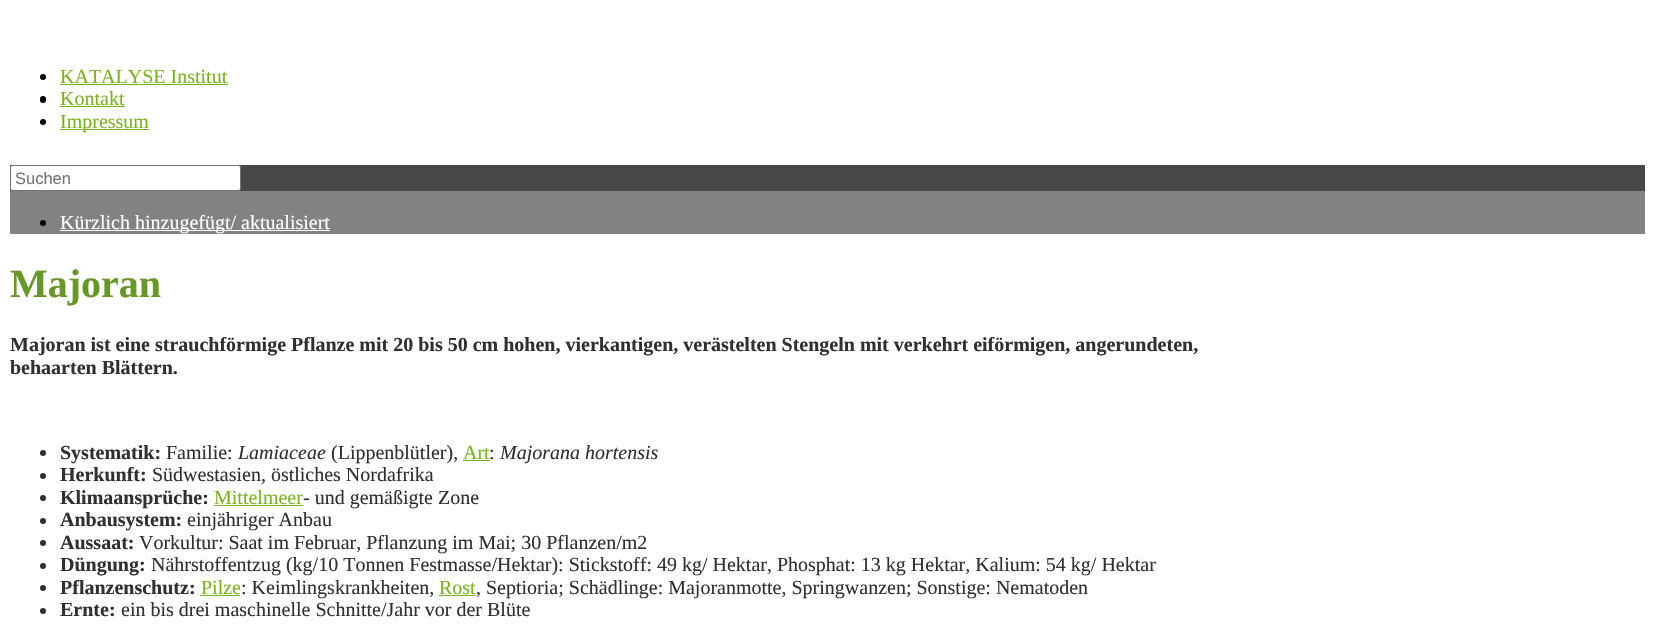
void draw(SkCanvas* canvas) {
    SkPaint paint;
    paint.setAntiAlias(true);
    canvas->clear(0xFFFFFFFF);
    paint.setColor(0xFF000000);
    canvas->drawCircle(43, 77, 3, paint);
    SkFont font1(fontMgr->matchFamilyStyle("Liberation Serif", SkFontStyle::Normal()), 20);
    font1.setSubpixel(true);
    paint.setColor(0xFF79B41E);
    canvas->drawString("KATALYSE Institut", 60, 83, font1, paint);
    canvas->drawRect(SkRect::MakeXYWH(60, 84, 168, 1), paint);
    paint.setColor(0xFF000000);
    canvas->drawRoundRect(SkRect::MakeXYWH(40, 96, 6, 7), 3, 3, paint);
    paint.setColor(0xFF79B41E);
    canvas->drawString("Kontakt", 60, 105, font1, paint);
    canvas->drawRect(SkRect::MakeXYWH(60, 106, 65, 1), paint);
    paint.setColor(0xFF000000);
    canvas->drawCircle(43, 122, 3, paint);
    paint.setColor(0xFF79B41E);
    canvas->drawRect(SkRect::MakeXYWH(60, 129, 89, 1), paint);
    canvas->drawString("Impressum", 60, 128, font1, paint);
    paint.setColor(0xFF828282);
    canvas->drawRect(SkRect::MakeXYWH(10, 191, 1635, 43), paint);
    paint.setColor(0xFF474747);
    canvas->drawRect(SkRect::MakeXYWH(10, 165, 1635, 26), paint);
    paint.setColor(0xFFFFFFFF);
    canvas->drawRoundRect(SkRect::MakeXYWH(10.5f, 165.5f, 230, 25), 2, 2, paint);
    paint.setStyle(SkPaint::kStroke_Style);
    paint.setStrokeWidth(1);
    paint.setColor(0xFF767676);
    canvas->drawRoundRect(SkRect::MakeXYWH(10.5f, 165.5f, 230, 25), 2, 2, paint);
    SkFont font2(fontMgr->matchFamilyStyle("Liberation Sans", SkFontStyle::Normal()), 16.5f);
    font2.setSubpixel(true);
    paint.setStyle(SkPaint::kFill_Style);
    paint.setColor(0xFF757575);
    canvas->drawString("Suchen", 15, 184, font2, paint);
    paint.setColor(0xFF000000);
    canvas->drawCircle(43, 223, 3, paint);
    paint.setColor(0xFFFFFFFF);
    canvas->drawRect(SkRect::MakeXYWH(60, 230, 270, 1), paint);
    canvas->drawString("Kürzlich hinzugefügt/ aktualisiert", 60, 229, font1, paint);
    SkFont font3(fontMgr->matchFamilyStyle("Liberation Serif", SkFontStyle::Bold()), 40);
    font3.setSubpixel(true);
    paint.setColor(0xFF669727);
    canvas->drawString("Majoran", 10, 297, font3, paint);
    SkFont font4(fontMgr->matchFamilyStyle("Liberation Serif", SkFontStyle::Bold()), 20);
    font4.setSubpixel(true);
    paint.setColor(0xFF303030);
    canvas->drawString("Majoran ist eine strauchförmige Pflanze mit 20 bis 50 cm hohen, vierkantigen, verästelten Stengeln mit verkehrt eiförmigen, angerundeten,", 10, 351, font4, paint);
    canvas->drawString("behaarten Blättern.", 10, 374, font4, paint);
    canvas->drawCircle(43, 453, 3, paint);
    canvas->drawString("Systematik:", 60, 459, font4, paint);
    canvas->drawString("Familie:", 166, 459, font1, paint);
    SkFont font5(fontMgr->matchFamilyStyle("Liberation Serif", SkFontStyle::Italic()), 20);
    font5.setSubpixel(true);
    canvas->drawString("Lamiaceae", 238, 459, font5, paint);
    canvas->drawString("(Lippenblütler),", 331, 459, font1, paint);
    paint.setColor(0xFF79B41E);
    canvas->drawString("Art", 463, 459, font1, paint);
    canvas->drawRect(SkRect::MakeXYWH(463, 460, 27, 1), paint);
    paint.setColor(0xFF303030);
    canvas->drawString(":", 489, 459, font1, paint);
    canvas->drawString("Majorana hortensis", 500, 459, font5, paint);
    canvas->drawCircle(43, 476, 3, paint);
    canvas->drawString("Herkunft:", 60, 481, font4, paint);
    canvas->drawString("Südwestasien, östliches Nordafrika", 152, 481, font1, paint);
    canvas->drawCircle(43, 498, 3, paint);
    canvas->drawString("Klimaansprüche:", 60, 504, font4, paint);
    paint.setColor(0xFF79B41E);
    canvas->drawString("Mittelmeer", 214, 504, font1, paint);
    canvas->drawRect(SkRect::MakeXYWH(214, 505, 89, 1), paint);
    paint.setColor(0xFF303030);
    canvas->drawString("- und gemäßigte Zone", 303, 504, font1, paint);
    canvas->drawCircle(43, 521, 3, paint);
    canvas->drawString("Anbausystem:", 60, 526, font4, paint);
    canvas->drawString("einjähriger Anbau", 187, 526, font1, paint);
    canvas->drawCircle(43, 543, 3, paint);
    canvas->drawString("Aussaat:", 60, 549, font4, paint);
    canvas->drawString("Vorkultur: Saat im Februar, Pflanzung im Mai; 30 Pflanzen/m2", 139, 549, font1, paint);
    canvas->drawCircle(43, 566, 3, paint);
    canvas->drawString("Düngung:", 60, 571, font4, paint);
    canvas->drawString("Nährstoffentzug (kg/10 Tonnen Festmasse/Hektar): Stickstoff: 49 kg/ Hektar, Phosphat: 13 kg Hektar, Kalium: 54 kg/ Hektar", 151, 571, font1, paint);
    canvas->drawCircle(43, 588, 3, paint);
    canvas->drawString("Pflanzenschutz:", 60, 594, font4, paint);
    paint.setColor(0xFF79B41E);
    canvas->drawString("Pilze", 201, 594, font1, paint);
    canvas->drawRect(SkRect::MakeXYWH(200, 595, 40, 1), paint);
    paint.setColor(0xFF303030);
    canvas->drawString(": Keimlingskrankheiten,", 241, 594, font1, paint);
    paint.setColor(0xFF79B41E);
    canvas->drawString("Rost", 439, 594, font1, paint);
    canvas->drawRect(SkRect::MakeXYWH(439, 595, 36, 1), paint);
    paint.setColor(0xFF303030);
    canvas->drawString(", Septioria; Schädlinge: Majoranmotte, Springwanzen; Sonstige: Nematoden", 476, 594, font1, paint);
    canvas->drawCircle(43, 611, 3, paint);
    canvas->drawString("Ernte:", 60, 616, font4, paint);
    canvas->drawString("ein bis drei maschinelle Schnitte/Jahr vor der Blüte", 121, 616, font1, paint);
}
